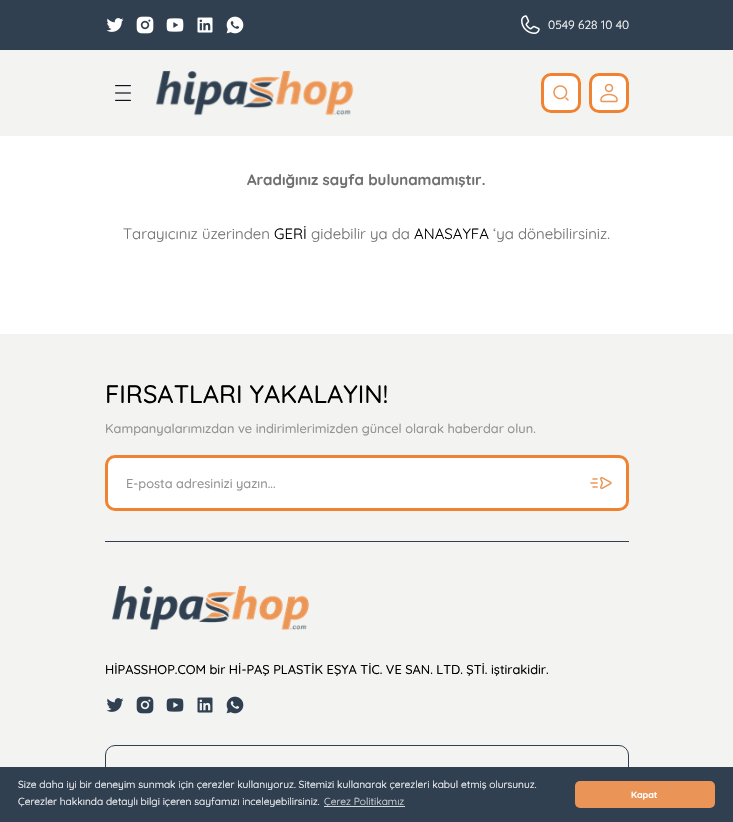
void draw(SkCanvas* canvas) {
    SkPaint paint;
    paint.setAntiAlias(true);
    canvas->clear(0xFFFFFFFF);
    paint.setColor(0xFF304050);
    canvas->drawRect(SkRect::MakeXYWH(0, 0, 733, 50), paint);
    canvas->drawImageRect(SkImages::DeferredFromEncodedData(SkData::MakeFromFileName("img1.png")), SkRect::MakeXYWH(106, 18, 18, 14), SkSamplingOptions());
    canvas->drawImageRect(SkImages::DeferredFromEncodedData(SkData::MakeFromFileName("img2.png")), SkRect::MakeXYWH(136, 16, 18, 18), SkSamplingOptions());
    canvas->drawImageRect(SkImages::DeferredFromEncodedData(SkData::MakeFromFileName("img3.png")), SkRect::MakeXYWH(166, 18, 18, 14), SkSamplingOptions());
    canvas->drawImageRect(SkImages::DeferredFromEncodedData(SkData::MakeFromFileName("img4.png")), SkRect::MakeXYWH(197, 17, 16, 16), SkSamplingOptions());
    canvas->drawImageRect(SkImages::DeferredFromEncodedData(SkData::MakeFromFileName("img5.png")), SkRect::MakeXYWH(226, 16, 18, 18), SkSamplingOptions());
    canvas->drawImageRect(SkImages::DeferredFromEncodedData(SkData::MakeFromFileName("img6.png")), SkRect::MakeXYWH(521, 15, 19, 19), SkSamplingOptions());
    SkFont font1(fontMgr->matchFamilyStyle("Quicksand", SkFontStyle::Normal()), 12);
    font1.setSubpixel(true);
    paint.setColor(0xFFFFFFFF);
    canvas->drawString("0549 628 10 40", 548, 29, font1, paint);
    paint.setColor(0xFFF3F4F2);
    canvas->drawRect(SkRect::MakeXYWH(0, 50, 733, 86), paint);
    canvas->drawImageRect(SkImages::DeferredFromEncodedData(SkData::MakeFromFileName("img7.png")), SkRect::MakeXYWH(115, 85, 16, 16), SkSamplingOptions());
    canvas->drawImageRect(SkImages::DeferredFromEncodedData(SkData::MakeFromFileName("img8.png")), SkRect::MakeXYWH(155, 70, 199, 46), SkSamplingOptions());
    paint.setColor(0xFFFFFFFF);
    canvas->drawRoundRect(SkRect::MakeXYWH(542.5f, 74.5f, 37, 37), 8.5f, 8.5f, paint);
    paint.setStyle(SkPaint::kStroke_Style);
    paint.setStrokeWidth(3);
    paint.setColor(0xFFF08331);
    canvas->drawRoundRect(SkRect::MakeXYWH(542.5f, 74.5f, 37, 37), 8.5f, 8.5f, paint);
    canvas->drawImageRect(SkImages::DeferredFromEncodedData(SkData::MakeFromFileName("img9.png")), SkRect::MakeXYWH(553, 85, 16, 16), SkSamplingOptions());
    paint.setStyle(SkPaint::kFill_Style);
    paint.setColor(0xFFFFFFFF);
    canvas->drawRoundRect(SkRect::MakeXYWH(590.5f, 74.5f, 37, 37), 8.5f, 8.5f, paint);
    paint.setStyle(SkPaint::kStroke_Style);
    paint.setColor(0xFFF08331);
    canvas->drawRoundRect(SkRect::MakeXYWH(590.5f, 74.5f, 37, 37), 8.5f, 8.5f, paint);
    canvas->drawImageRect(SkImages::DeferredFromEncodedData(SkData::MakeFromFileName("img10.png")), SkRect::MakeXYWH(600, 83, 18, 20), SkSamplingOptions());
    SkFont font2(fontMgr->matchFamilyStyle("Quicksand", SkFontStyle::Bold()), 15);
    font2.setSubpixel(true);
    paint.setStyle(SkPaint::kFill_Style);
    paint.setColor(0xFF6F6F6F);
    canvas->drawString("Aradığınız sayfa bulunamamıştır.", 247, 185, font2, paint);
    SkFont font3(fontMgr->matchFamilyStyle("Quicksand", SkFontStyle::Normal()), 15);
    font3.setSubpixel(true);
    canvas->drawString("Tarayıcınız üzerinden", 123, 239, font3, paint);
    paint.setColor(0xFF000000);
    canvas->drawString("GERİ", 274, 239, font3, paint);
    paint.setColor(0xFF6F6F6F);
    canvas->drawString("gidebilir ya da", 311, 239, font3, paint);
    paint.setColor(0xFF000000);
    canvas->drawString("ANASAYFA", 414, 239, font3, paint);
    paint.setColor(0xFF6F6F6F);
    canvas->drawString("‘ya dönebilirsiniz.", 493, 239, font3, paint);
    paint.setColor(0xFFF3F4F2);
    canvas->drawRect(SkRect::MakeXYWH(0, 334, 733, 433), paint);
    paint.setColor(0xFF304050);
    canvas->drawRect(SkRect::MakeXYWH(105, 541, 524, 1), paint);
    SkFont font4(fontMgr->matchFamilyStyle("Quicksand", SkFontStyle(500, SkFontStyle::kNormal_Width, SkFontStyle::kUpright_Slant)), 25.25f);
    font4.setSubpixel(true);
    paint.setColor(0xFF000000);
    canvas->drawString("FIRSATLARI YAKALAYIN!", 105, 403, font4, paint);
    SkFont font5(fontMgr->matchFamilyStyle("Quicksand", SkFontStyle(500, SkFontStyle::kNormal_Width, SkFontStyle::kUpright_Slant)), 12.8f);
    font5.setSubpixel(true);
    paint.setColor(0xFF929292);
    canvas->drawString("Kampanyalarımızdan ve indirimlerimizden güncel olarak haberdar olun.", 105, 433, font5, paint);
    paint.setColor(0xFFFFFFFF);
    canvas->drawRoundRect(SkRect::MakeXYWH(106.5f, 456.5f, 521, 53), 8.5f, 8.5f, paint);
    paint.setStyle(SkPaint::kStroke_Style);
    paint.setColor(0xFFF08331);
    canvas->drawRoundRect(SkRect::MakeXYWH(106.5f, 456.5f, 521, 53), 8.5f, 8.5f, paint);
    paint.setStyle(SkPaint::kFill_Style);
    paint.setColor(0xFF929292);
    canvas->drawString("E-posta adresinizi yazın...", 126, 488, font5, paint);
    canvas->drawImageRect(SkImages::DeferredFromEncodedData(SkData::MakeFromFileName("img11.png")), SkRect::MakeXYWH(590, 476, 22, 14), SkSamplingOptions());
    canvas->drawImageRect(SkImages::DeferredFromEncodedData(SkData::MakeFromFileName("img12.png")), SkRect::MakeXYWH(112, 585, 197, 45), SkSamplingOptions());
    paint.setColor(0xFF000000);
    canvas->drawString("HİPASSHOP.COM bir Hİ-PAŞ PLASTİK EŞYA TİC. VE SAN. LTD. ŞTİ. iştirakidir.", 105, 674, font5, paint);
    canvas->drawImageRect(SkImages::DeferredFromEncodedData(SkData::MakeFromFileName("img13.png")), SkRect::MakeXYWH(106, 698, 18, 14), SkSamplingOptions());
    canvas->drawImageRect(SkImages::DeferredFromEncodedData(SkData::MakeFromFileName("img14.png")), SkRect::MakeXYWH(136, 696, 18, 18), SkSamplingOptions());
    canvas->drawImageRect(SkImages::DeferredFromEncodedData(SkData::MakeFromFileName("img15.png")), SkRect::MakeXYWH(166, 698, 18, 14), SkSamplingOptions());
    canvas->drawImageRect(SkImages::DeferredFromEncodedData(SkData::MakeFromFileName("img16.png")), SkRect::MakeXYWH(197, 697, 16, 16), SkSamplingOptions());
    canvas->drawImageRect(SkImages::DeferredFromEncodedData(SkData::MakeFromFileName("img17.png")), SkRect::MakeXYWH(226, 696, 18, 18), SkSamplingOptions());
    paint.setStyle(SkPaint::kStroke_Style);
    paint.setStrokeWidth(1);
    paint.setColor(0xFF304050);
    canvas->drawRoundRect(SkRect::MakeXYWH(105.5f, 745.5f, 523, 54), 9.5f, 9.5f, paint);
    paint.setStyle(SkPaint::kFill_Style);
    canvas->drawRect(SkRect::MakeXYWH(0, 767, 733, 55), paint);
    SkFont font6(fontMgr->matchFamilyStyle("Quicksand", SkFontStyle::Normal()), 10.2f);
    font6.setSubpixel(true);
    paint.setColor(0xFFFFFFFF);
    canvas->drawString("Size daha iyi bir deneyim sunmak için çerezler kullanıyoruz. Sitemizi kullanarak çerezleri kabul etmiş olursunuz.", 18, 788, font6, paint);
    canvas->drawString("Çerezler hakkında detaylı bilgi içeren sayfamızı inceleyebilirsiniz.", 18, 805, font6, paint);
    paint.setColor(0xFFD6D9DC);
    canvas->drawRect(SkRect::MakeXYWH(324, 806, 81, 1), paint);
    canvas->drawString("Çerez Politikamız", 324, 805, font6, paint);
    paint.setColor(0xFFEA9457);
    canvas->drawRoundRect(SkRect::MakeXYWH(575, 781, 140, 27), 5, 5, paint);
    SkFont font7(fontMgr->matchFamilyStyle("Quicksand", SkFontStyle::Bold()), 9);
    font7.setSubpixel(true);
    paint.setColor(0xFFFFFFFF);
    canvas->drawString("Kapat", 631, 798, font7, paint);
}
